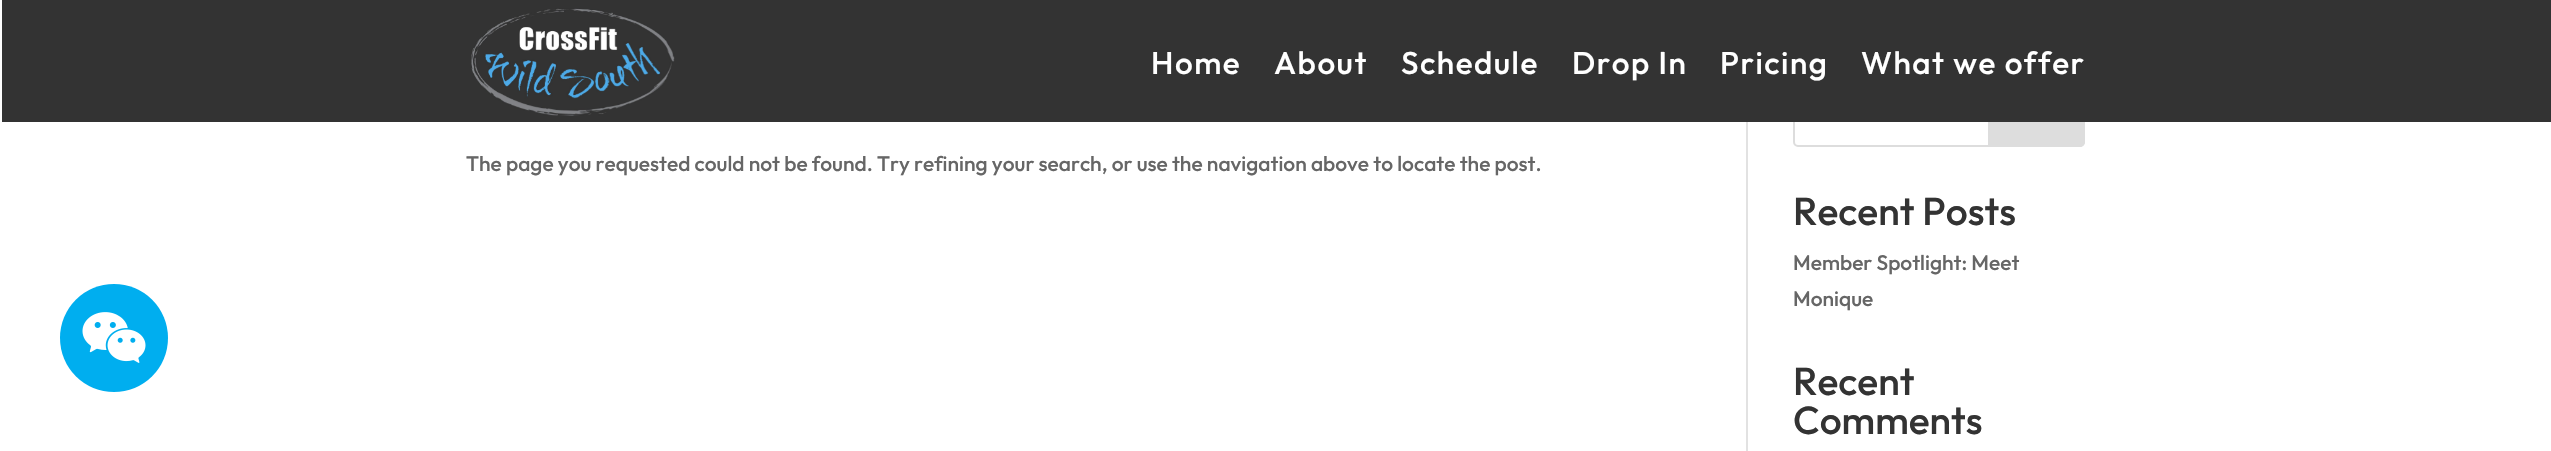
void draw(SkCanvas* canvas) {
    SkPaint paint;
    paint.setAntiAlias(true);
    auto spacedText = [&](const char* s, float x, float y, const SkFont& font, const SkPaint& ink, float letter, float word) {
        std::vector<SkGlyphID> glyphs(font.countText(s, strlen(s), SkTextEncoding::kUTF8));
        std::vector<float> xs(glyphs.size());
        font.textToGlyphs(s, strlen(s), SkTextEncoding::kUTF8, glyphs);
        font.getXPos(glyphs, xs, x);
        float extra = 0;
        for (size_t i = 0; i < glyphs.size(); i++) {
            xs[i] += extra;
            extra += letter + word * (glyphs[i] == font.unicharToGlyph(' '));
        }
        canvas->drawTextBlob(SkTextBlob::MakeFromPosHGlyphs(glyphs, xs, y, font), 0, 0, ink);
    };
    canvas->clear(0xFFFFFFFF);
    paint.setColor(0xFF00AEEF);
    canvas->drawCircle(114, 338, 54, paint);
    canvas->drawImageRect(SkImages::DeferredFromEncodedData(SkData::MakeFromFileName("img1.png")), SkRect::MakeXYWH(82, 312, 64, 51), SkSamplingOptions());
    paint.setStyle(SkPaint::kStroke_Style);
    paint.setStrokeWidth(2);
    paint.setColor(0xFFDDDDDD);
    canvas->drawRoundRect(SkRect::MakeXYWH(1794, 88, 290, 58), 4, 4, paint);
    paint.setStyle(SkPaint::kFill_Style);
    canvas->drawPath(SkPathBuilder().moveTo(1989, 88).lineTo(2080, 88).cubicTo(2082, 88, 2084, 90, 2084, 92).lineTo(2084, 142).cubicTo(2084, 144, 2082, 146, 2080, 146).lineTo(1989, 146).close().detach(), paint);
    paint.setStyle(SkPaint::kStroke_Style);
    canvas->drawPath(SkPathBuilder().moveTo(1989, 88).lineTo(2080, 88).cubicTo(2082, 88, 2084, 90, 2084, 92).lineTo(2084, 142).cubicTo(2084, 144, 2082, 146, 2080, 146).lineTo(1989, 146).close().detach(), paint);
    paint.setStyle(SkPaint::kFill_Style);
    paint.setColor(0xFF333333);
    canvas->drawRect(SkRect::MakeXYWH(2, 0, 2549, 122), paint);
    canvas->drawImageRect(SkImages::DeferredFromEncodedData(SkData::MakeFromFileName("img2.png")), SkRect::MakeXYWH(471, 8, 204, 108), SkSamplingOptions());
    SkFont font1(fontMgr->matchFamilyStyle("Outfit", SkFontStyle(500, SkFontStyle::kNormal_Width, SkFontStyle::kUpright_Slant)), 31.5f);
    font1.setSubpixel(true);
    paint.setColor(0xFFFFFFFF);
    spacedText("Home", 1151, 74, font1, paint, 1.5f, 0);
    spacedText("About", 1274, 74, font1, paint, 1.5f, 0);
    spacedText("Schedule", 1401, 74, font1, paint, 1.5f, 0);
    spacedText("Drop In", 1572, 74, font1, paint, 1.5f, 0);
    spacedText("Pricing", 1720, 74, font1, paint, 1.5f, 0);
    spacedText("What we offer", 1861, 74, font1, paint, 1.5f, 0);
    paint.setColor(0xFFE2E2E2);
    canvas->drawRect(SkRect::MakeXYWH(1746, 122, 2, 329), paint);
    SkFont font2(fontMgr->matchFamilyStyle("Outfit", SkFontStyle(500, SkFontStyle::kNormal_Width, SkFontStyle::kUpright_Slant)), 21);
    font2.setSubpixel(true);
    paint.setColor(0xFF666666);
    canvas->drawString("The page you requested could not be found. Try refining your search, or use the navigation above to locate the post.", 466, 171, font2, paint);
    SkFont font3(fontMgr->matchFamilyStyle("Outfit", SkFontStyle(500, SkFontStyle::kNormal_Width, SkFontStyle::kUpright_Slant)), 39);
    font3.setSubpixel(true);
    paint.setColor(0xFF333333);
    canvas->drawString("Recent Posts", 1793, 225, font3, paint);
    paint.setColor(0xFF666666);
    canvas->drawString("Member Spotlight: Meet", 1793, 270, font2, paint);
    canvas->drawString("Monique", 1793, 306, font2, paint);
    paint.setColor(0xFF333333);
    canvas->drawString("Recent", 1793, 395, font3, paint);
    canvas->drawString("Comments", 1793, 434, font3, paint);
}
